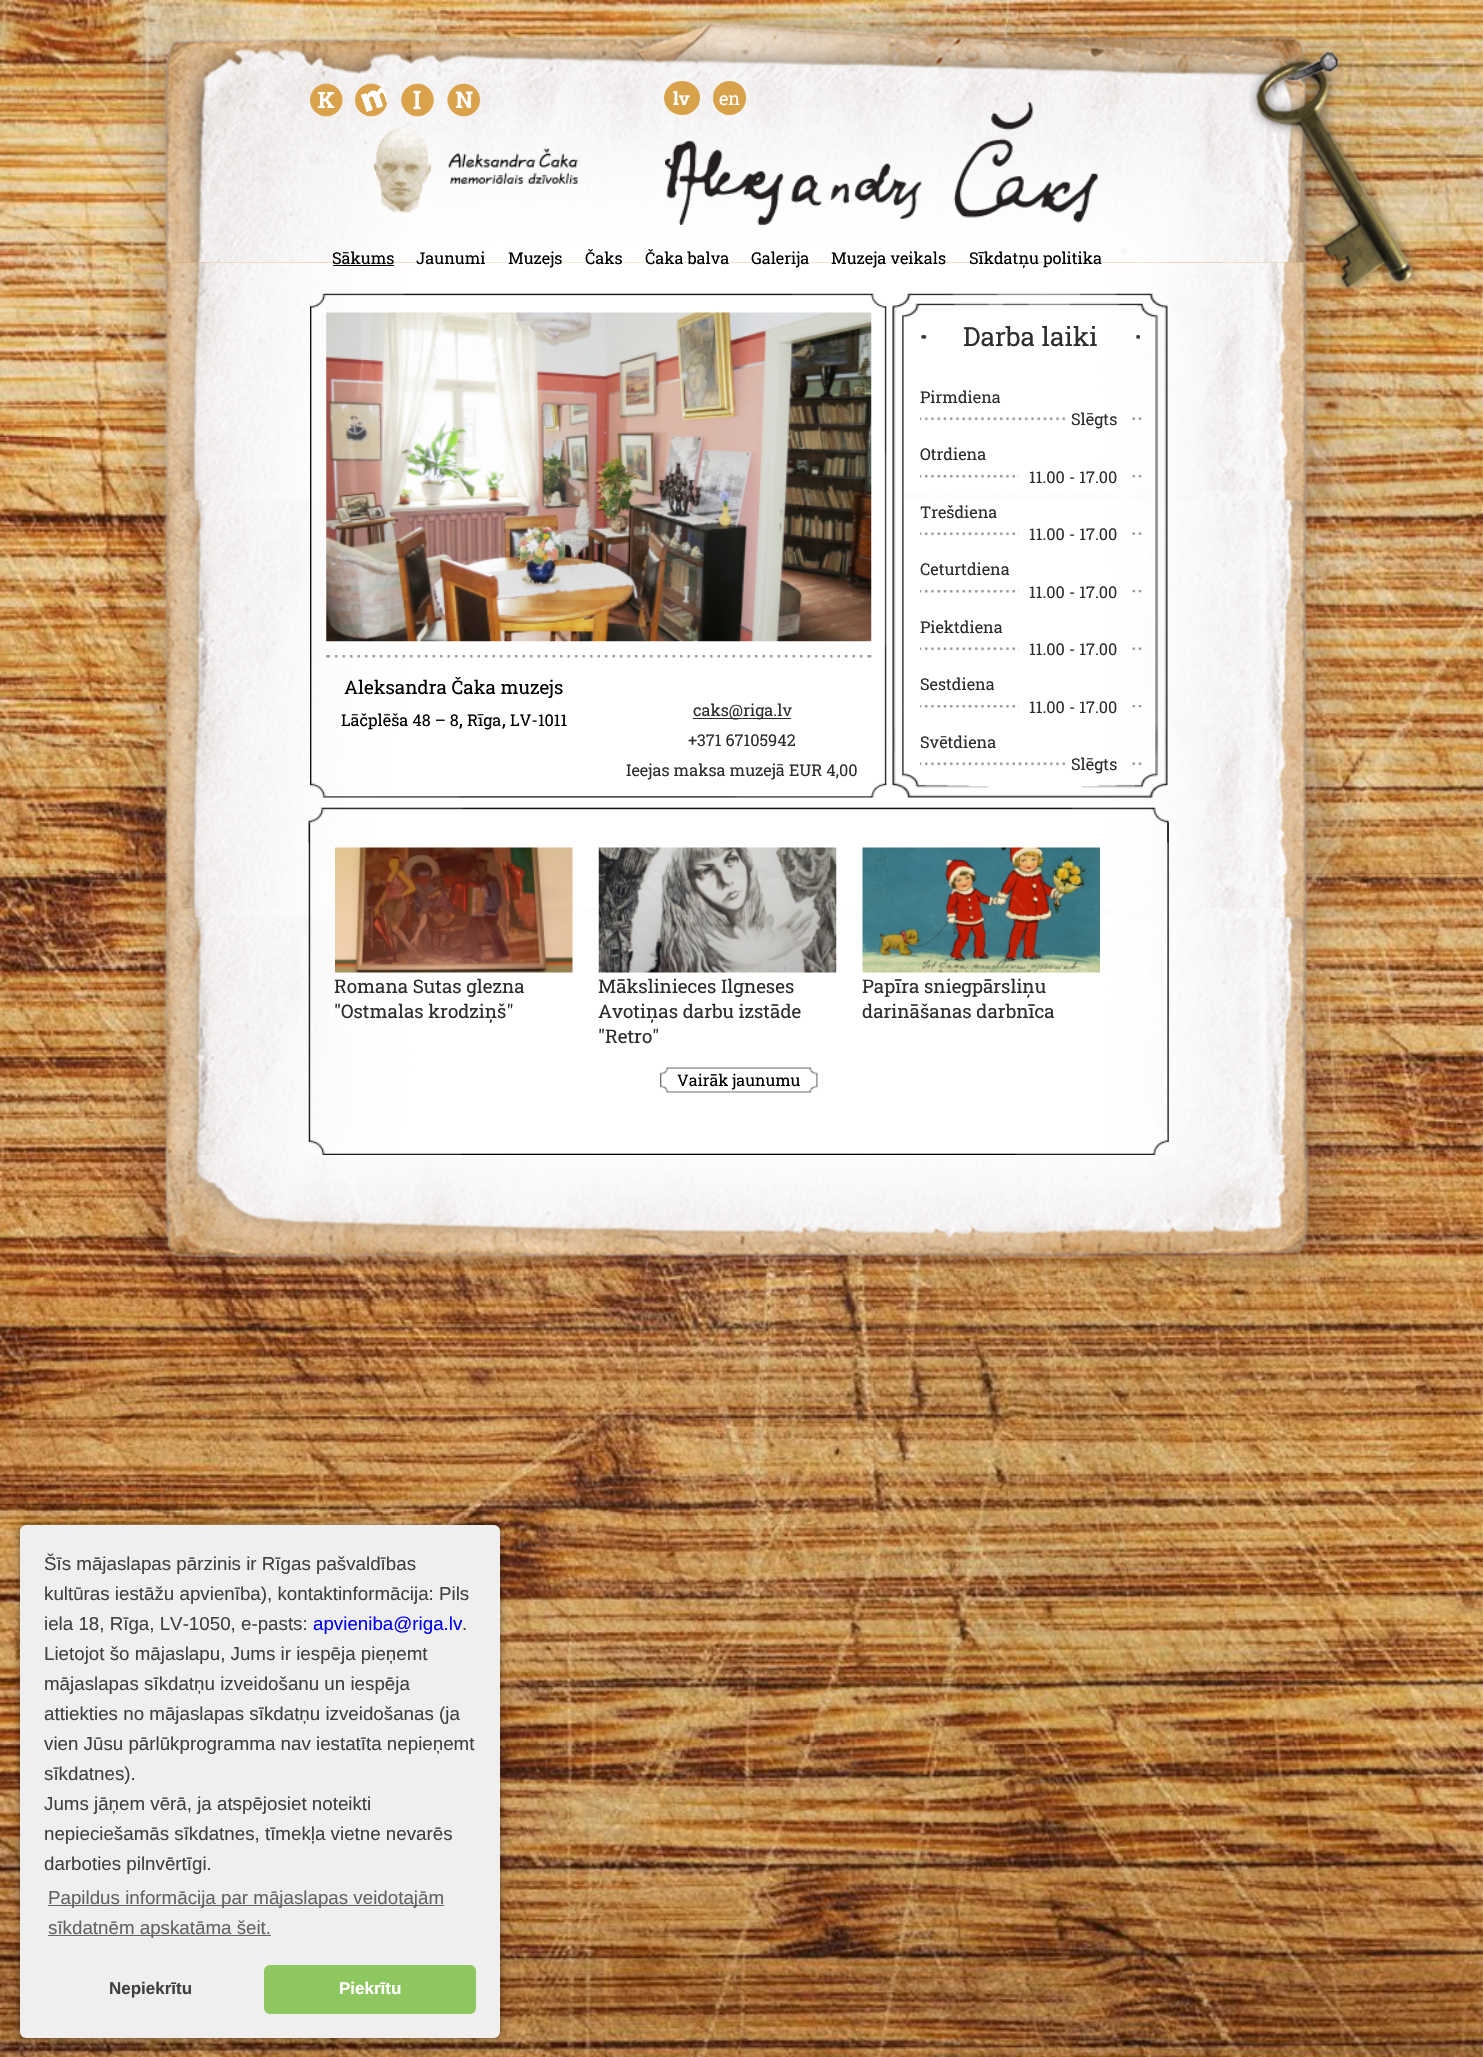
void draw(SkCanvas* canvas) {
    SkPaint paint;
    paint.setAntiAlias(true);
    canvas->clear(0xFFFFFFFF);
    canvas->drawImageRect(SkImages::DeferredFromEncodedData(SkData::MakeFromFileName("img1.png")), SkRect::MakeXYWH(0, 0, 1483, 2057), SkSamplingOptions());
    canvas->drawImageRect(SkImages::DeferredFromEncodedData(SkData::MakeFromFileName("img2.png")), SkRect::MakeXYWH(117, 1146, 1249, 122), SkSamplingOptions());
    canvas->drawImageRect(SkImages::DeferredFromEncodedData(SkData::MakeFromFileName("img3.png")), SkRect::MakeXYWH(122, 9, 1221, 254), SkSamplingOptions());
    canvas->drawImageRect(SkImages::DeferredFromEncodedData(SkData::MakeFromFileName("img4.png")), SkRect::MakeXYWH(310, 83, 33, 34), SkSamplingOptions());
    canvas->drawImageRect(SkImages::DeferredFromEncodedData(SkData::MakeFromFileName("img5.png")), SkRect::MakeXYWH(355, 83, 33, 34), SkSamplingOptions());
    canvas->drawImageRect(SkImages::DeferredFromEncodedData(SkData::MakeFromFileName("img6.png")), SkRect::MakeXYWH(401, 83, 33, 34), SkSamplingOptions());
    canvas->drawImageRect(SkImages::DeferredFromEncodedData(SkData::MakeFromFileName("img7.png")), SkRect::MakeXYWH(447, 83, 33, 34), SkSamplingOptions());
    canvas->drawImageRect(SkImages::DeferredFromEncodedData(SkData::MakeFromFileName("img9.png")), SkRect::MakeXYWH(665, 102, 433, 123), SkSamplingOptions());
    paint.setColor(0xFFD8A24B);
    canvas->drawOval(SkRect::MakeXYWH(664, 81, 36, 34), paint);
    SkFont font1(fontMgr->matchFamilyStyle("Roboto Slab", SkFontStyle::Bold()), 18);
    font1.setSubpixel(true);
    paint.setColor(0xFFFFFFFF);
    canvas->drawString("lv", 673, 105, font1, paint);
    paint.setColor(0xFFD8A24B);
    canvas->drawRoundRect(SkRect::MakeXYWH(713, 81, 33, 34), 16.5f, 16.5f, paint);
    SkFont font2(fontMgr->matchFamilyStyle("Roboto Slab", SkFontStyle::Normal()), 18);
    font2.setSubpixel(true);
    paint.setColor(0xFFFFFFFF);
    canvas->drawString("en", 719, 105, font2, paint);
    canvas->drawImageRect(SkImages::DeferredFromEncodedData(SkData::MakeFromFileName("img8.png")), SkRect::MakeXYWH(373, 127, 205, 86), SkSamplingOptions());
    canvas->drawImageRect(SkImages::DeferredFromEncodedData(SkData::MakeFromFileName("img11.png")), SkRect::MakeXYWH(126, 262, 1233, 893), SkSamplingOptions());
    SkFont font3(fontMgr->matchFamilyStyle("Roboto Slab", SkFontStyle::Normal()), 16.25f);
    font3.setSubpixel(true);
    paint.setColor(0xFF000000);
    canvas->drawString("Sākums", 332, 264, font3, paint);
    canvas->drawRect(SkRect::MakeXYWH(333, 265, 61, 1), paint);
    canvas->drawString("Jaunumi", 416, 264, font3, paint);
    canvas->drawString("Muzejs", 508, 264, font3, paint);
    canvas->drawString("Čaks", 585, 264, font3, paint);
    canvas->drawString("Čaka balva", 645, 264, font3, paint);
    canvas->drawString("Galerija", 751, 264, font3, paint);
    canvas->drawString("Muzeja veikals", 831, 264, font3, paint);
    canvas->drawString("Sīkdatņu politika", 969, 264, font3, paint);
    canvas->drawImageRect(SkImages::DeferredFromEncodedData(SkData::MakeFromFileName("img10.png")), SkRect::MakeXYWH(1249, 51, 171, 243), SkSamplingOptions());
    canvas->drawImageRect(SkImages::DeferredFromEncodedData(SkData::MakeFromFileName("img12.png")), SkRect::MakeXYWH(310, 293, 577, 505), SkSamplingOptions());
    canvas->drawImageRect(SkImages::DeferredFromEncodedData(SkData::MakeFromFileName("img13.png")), SkRect::MakeXYWH(326, 312, 546, 330), SkSamplingOptions());
    canvas->drawImageRect(SkImages::DeferredFromEncodedData(SkData::MakeFromFileName("img14.png")), SkRect::MakeXYWH(326, 655, 546, 3), SkSamplingOptions());
    SkFont font4(fontMgr->matchFamilyStyle("Roboto Slab", SkFontStyle::Normal()), 18.75f);
    font4.setSubpixel(true);
    canvas->drawString("Aleksandra Čaka muzejs", 344, 694, font4, paint);
    canvas->drawString("Lāčplēša 48 – 8", 341, 726, font3, paint);
    canvas->drawString(",", 459, 726, font4, paint);
    canvas->drawString("Rīga", 467, 726, font3, paint);
    canvas->drawString(",", 502, 726, font4, paint);
    canvas->drawString("LV-1011", 510, 726, font3, paint);
    paint.setColor(0xFF2E2E2E);
    canvas->drawRect(SkRect::MakeXYWH(693, 718, 98, 1), paint);
    canvas->drawString("caks@riga.lv", 693, 716, font3, paint);
    canvas->drawString("+371 67105942", 688, 746, font3, paint);
    canvas->drawString("Ieejas maksa muzejā EUR 4,00", 626, 776, font3, paint);
    canvas->drawImageRect(SkImages::DeferredFromEncodedData(SkData::MakeFromFileName("img15.png")), SkRect::MakeXYWH(892, 293, 276, 505), SkSamplingOptions());
    canvas->drawImageRect(SkImages::DeferredFromEncodedData(SkData::MakeFromFileName("img16.png")), SkRect::MakeXYWH(921, 335, 219, 4), SkSamplingOptions());
    SkFont font5(fontMgr->matchFamilyStyle("Roboto Slab", SkFontStyle::Normal()), 26.25f);
    font5.setSubpixel(true);
    canvas->drawString("Darba laiki", 963, 346, font5, paint);
    canvas->drawString("Pirmdiena", 920, 403, font3, paint);
    canvas->drawImageRect(SkImages::DeferredFromEncodedData(SkData::MakeFromFileName("img17.png")), SkRect::MakeXYWH(920, 417, 145, 4), SkSamplingOptions());
    canvas->drawString("Slēgts", 1071, 425, font3, paint);
    canvas->drawImageRect(SkImages::DeferredFromEncodedData(SkData::MakeFromFileName("img18.png")), SkRect::MakeXYWH(1132, 417, 10, 3), SkSamplingOptions());
    canvas->drawString("Otrdiena", 920, 460, font3, paint);
    canvas->drawImageRect(SkImages::DeferredFromEncodedData(SkData::MakeFromFileName("img19.png")), SkRect::MakeXYWH(920, 475, 99, 3), SkSamplingOptions());
    canvas->drawString("11.00 - 17.00", 1029, 483, font3, paint);
    canvas->drawImageRect(SkImages::DeferredFromEncodedData(SkData::MakeFromFileName("img20.png")), SkRect::MakeXYWH(1132, 475, 10, 3), SkSamplingOptions());
    canvas->drawString("Trešdiena", 920, 518, font3, paint);
    canvas->drawImageRect(SkImages::DeferredFromEncodedData(SkData::MakeFromFileName("img21.png")), SkRect::MakeXYWH(920, 532, 99, 4), SkSamplingOptions());
    canvas->drawString("11.00 - 17.00", 1029, 540, font3, paint);
    canvas->drawImageRect(SkImages::DeferredFromEncodedData(SkData::MakeFromFileName("img22.png")), SkRect::MakeXYWH(1132, 532, 10, 3), SkSamplingOptions());
    canvas->drawString("Ceturtdiena", 920, 575, font3, paint);
    canvas->drawImageRect(SkImages::DeferredFromEncodedData(SkData::MakeFromFileName("img23.png")), SkRect::MakeXYWH(920, 590, 99, 3), SkSamplingOptions());
    canvas->drawString("11.00 - 17.00", 1029, 598, font3, paint);
    canvas->drawImageRect(SkImages::DeferredFromEncodedData(SkData::MakeFromFileName("img24.png")), SkRect::MakeXYWH(1132, 590, 10, 3), SkSamplingOptions());
    canvas->drawString("Piektdiena", 920, 633, font3, paint);
    canvas->drawImageRect(SkImages::DeferredFromEncodedData(SkData::MakeFromFileName("img21.png")), SkRect::MakeXYWH(920, 647, 99, 4), SkSamplingOptions());
    canvas->drawString("11.00 - 17.00", 1029, 655, font3, paint);
    canvas->drawImageRect(SkImages::DeferredFromEncodedData(SkData::MakeFromFileName("img25.png")), SkRect::MakeXYWH(1132, 647, 10, 3), SkSamplingOptions());
    canvas->drawString("Sestdiena", 920, 690, font3, paint);
    canvas->drawImageRect(SkImages::DeferredFromEncodedData(SkData::MakeFromFileName("img19.png")), SkRect::MakeXYWH(920, 705, 99, 3), SkSamplingOptions());
    canvas->drawString("11.00 - 17.00", 1029, 713, font3, paint);
    canvas->drawImageRect(SkImages::DeferredFromEncodedData(SkData::MakeFromFileName("img26.png")), SkRect::MakeXYWH(1132, 705, 10, 3), SkSamplingOptions());
    canvas->drawString("Svētdiena", 920, 748, font3, paint);
    canvas->drawImageRect(SkImages::DeferredFromEncodedData(SkData::MakeFromFileName("img17.png")), SkRect::MakeXYWH(920, 762, 145, 4), SkSamplingOptions());
    canvas->drawString("Slēgts", 1071, 770, font3, paint);
    canvas->drawImageRect(SkImages::DeferredFromEncodedData(SkData::MakeFromFileName("img27.png")), SkRect::MakeXYWH(1132, 762, 10, 3), SkSamplingOptions());
    canvas->drawImageRect(SkImages::DeferredFromEncodedData(SkData::MakeFromFileName("img29.png")), SkRect::MakeXYWH(308, 822, 861, 308), SkSamplingOptions());
    canvas->drawImageRect(SkImages::DeferredFromEncodedData(SkData::MakeFromFileName("img28.png")), SkRect::MakeXYWH(308, 807, 861, 36), SkSamplingOptions());
    canvas->drawImageRect(SkImages::DeferredFromEncodedData(SkData::MakeFromFileName("img30.png")), SkRect::MakeXYWH(335, 847, 238, 126), SkSamplingOptions());
    canvas->drawString("Romana Sutas glezna", 334, 993, font4, paint);
    canvas->drawString("\"Ostmalas krodziņš\"", 334, 1018, font4, paint);
    canvas->drawImageRect(SkImages::DeferredFromEncodedData(SkData::MakeFromFileName("img31.png")), SkRect::MakeXYWH(598, 847, 239, 126), SkSamplingOptions());
    canvas->drawString("Mākslinieces Ilgneses", 598, 993, font4, paint);
    canvas->drawString("Avotiņas darbu izstāde", 598, 1018, font4, paint);
    canvas->drawString("\"Retro\"", 598, 1043, font4, paint);
    canvas->drawImageRect(SkImages::DeferredFromEncodedData(SkData::MakeFromFileName("img32.png")), SkRect::MakeXYWH(862, 847, 238, 126), SkSamplingOptions());
    canvas->drawString("Papīra sniegpārsliņu", 862, 993, font4, paint);
    canvas->drawString("darināšanas darbnīca", 862, 1018, font4, paint);
    canvas->drawImageRect(SkImages::DeferredFromEncodedData(SkData::MakeFromFileName("img33.png")), SkRect::MakeXYWH(660, 1067, 158, 26), SkSamplingOptions());
    SkFont font6(fontMgr->matchFamilyStyle("Roboto Slab", SkFontStyle::Normal()), 16);
    font6.setSubpixel(true);
    paint.setColor(0xFF000000);
    canvas->drawString("Vairāk jaunumu", 677, 1086, font6, paint);
    canvas->drawImageRect(SkImages::DeferredFromEncodedData(SkData::MakeFromFileName("img34.png")), SkRect::MakeXYWH(308, 1130, 861, 25), SkSamplingOptions());
    paint.setColor(0x80000000);
    paint.setMaskFilter(SkMaskFilter::MakeBlur(kNormal_SkBlurStyle, 4));
    canvas->drawRoundRect(SkRect::MakeXYWH(20, 1525, 480, 513), 6, 6, paint);
    paint.setMaskFilter(nullptr);
    paint.setColor(0xFFEFEFEF);
    canvas->drawRoundRect(SkRect::MakeXYWH(20, 1525, 480, 513), 6, 6, paint);
    SkFont font7(fontMgr->matchFamilyStyle("Liberation Sans", SkFontStyle::Normal()), 18.75f);
    font7.setSubpixel(true);
    paint.setColor(0xFF404040);
    canvas->drawString("Šīs mājaslapas pārzinis ir Rīgas pašvaldības", 44, 1570, font7, paint);
    canvas->drawString("kultūras iestāžu apvienība), kontaktinformācija: Pils", 44, 1600, font7, paint);
    canvas->drawString("iela 18, Rīga, LV-1050, e-pasts:", 44, 1630, font7, paint);
    paint.setColor(0xFF0000EE);
    canvas->drawString("apvieniba@riga.lv", 313, 1630, font7, paint);
    paint.setColor(0xFF404040);
    canvas->drawString(".", 462, 1630, font7, paint);
    canvas->drawString("Lietojot šo mājaslapu, Jums ir iespēja pieņemt", 44, 1660, font7, paint);
    canvas->drawString("mājaslapas sīkdatņu izveidošanu un iespēja", 44, 1690, font7, paint);
    canvas->drawString("attiekties no mājaslapas sīkdatņu izveidošanas (ja", 44, 1720, font7, paint);
    canvas->drawString("vien Jūsu pārlūkprogramma nav iestatīta nepieņemt", 44, 1750, font7, paint);
    canvas->drawString("sīkdatnes).", 44, 1780, font7, paint);
    canvas->drawString("Jums jāņem vērā, ja atspējosiet noteikti", 44, 1810, font7, paint);
    canvas->drawString("nepieciešamās sīkdatnes, tīmekļa vietne nevarēs", 44, 1840, font7, paint);
    canvas->drawString("darboties pilnvērtīgi.", 44, 1870, font7, paint);
    paint.setColor(0xFF636363);
    canvas->drawRect(SkRect::MakeXYWH(48, 1905, 396, 1), paint);
    canvas->drawString("Papildus informācija par mājaslapas veidotajām", 48, 1904, font7, paint);
    canvas->drawRect(SkRect::MakeXYWH(48, 1935, 223, 1), paint);
    canvas->drawString("sīkdatnēm apskatāma šeit.", 48, 1934, font7, paint);
    SkFont font8(fontMgr->matchFamilyStyle("Liberation Sans", SkFontStyle::Bold()), 17);
    font8.setSubpixel(true);
    paint.setColor(0xFF404040);
    canvas->drawString("Nepiekrītu", 109, 1994, font8, paint);
    paint.setColor(0xFF8EC760);
    canvas->drawRoundRect(SkRect::MakeXYWH(264, 1965, 212, 49), 6, 6, paint);
    paint.setColor(0xFFFFFFFF);
    canvas->drawString("Piekrītu", 339, 1994, font8, paint);
}
